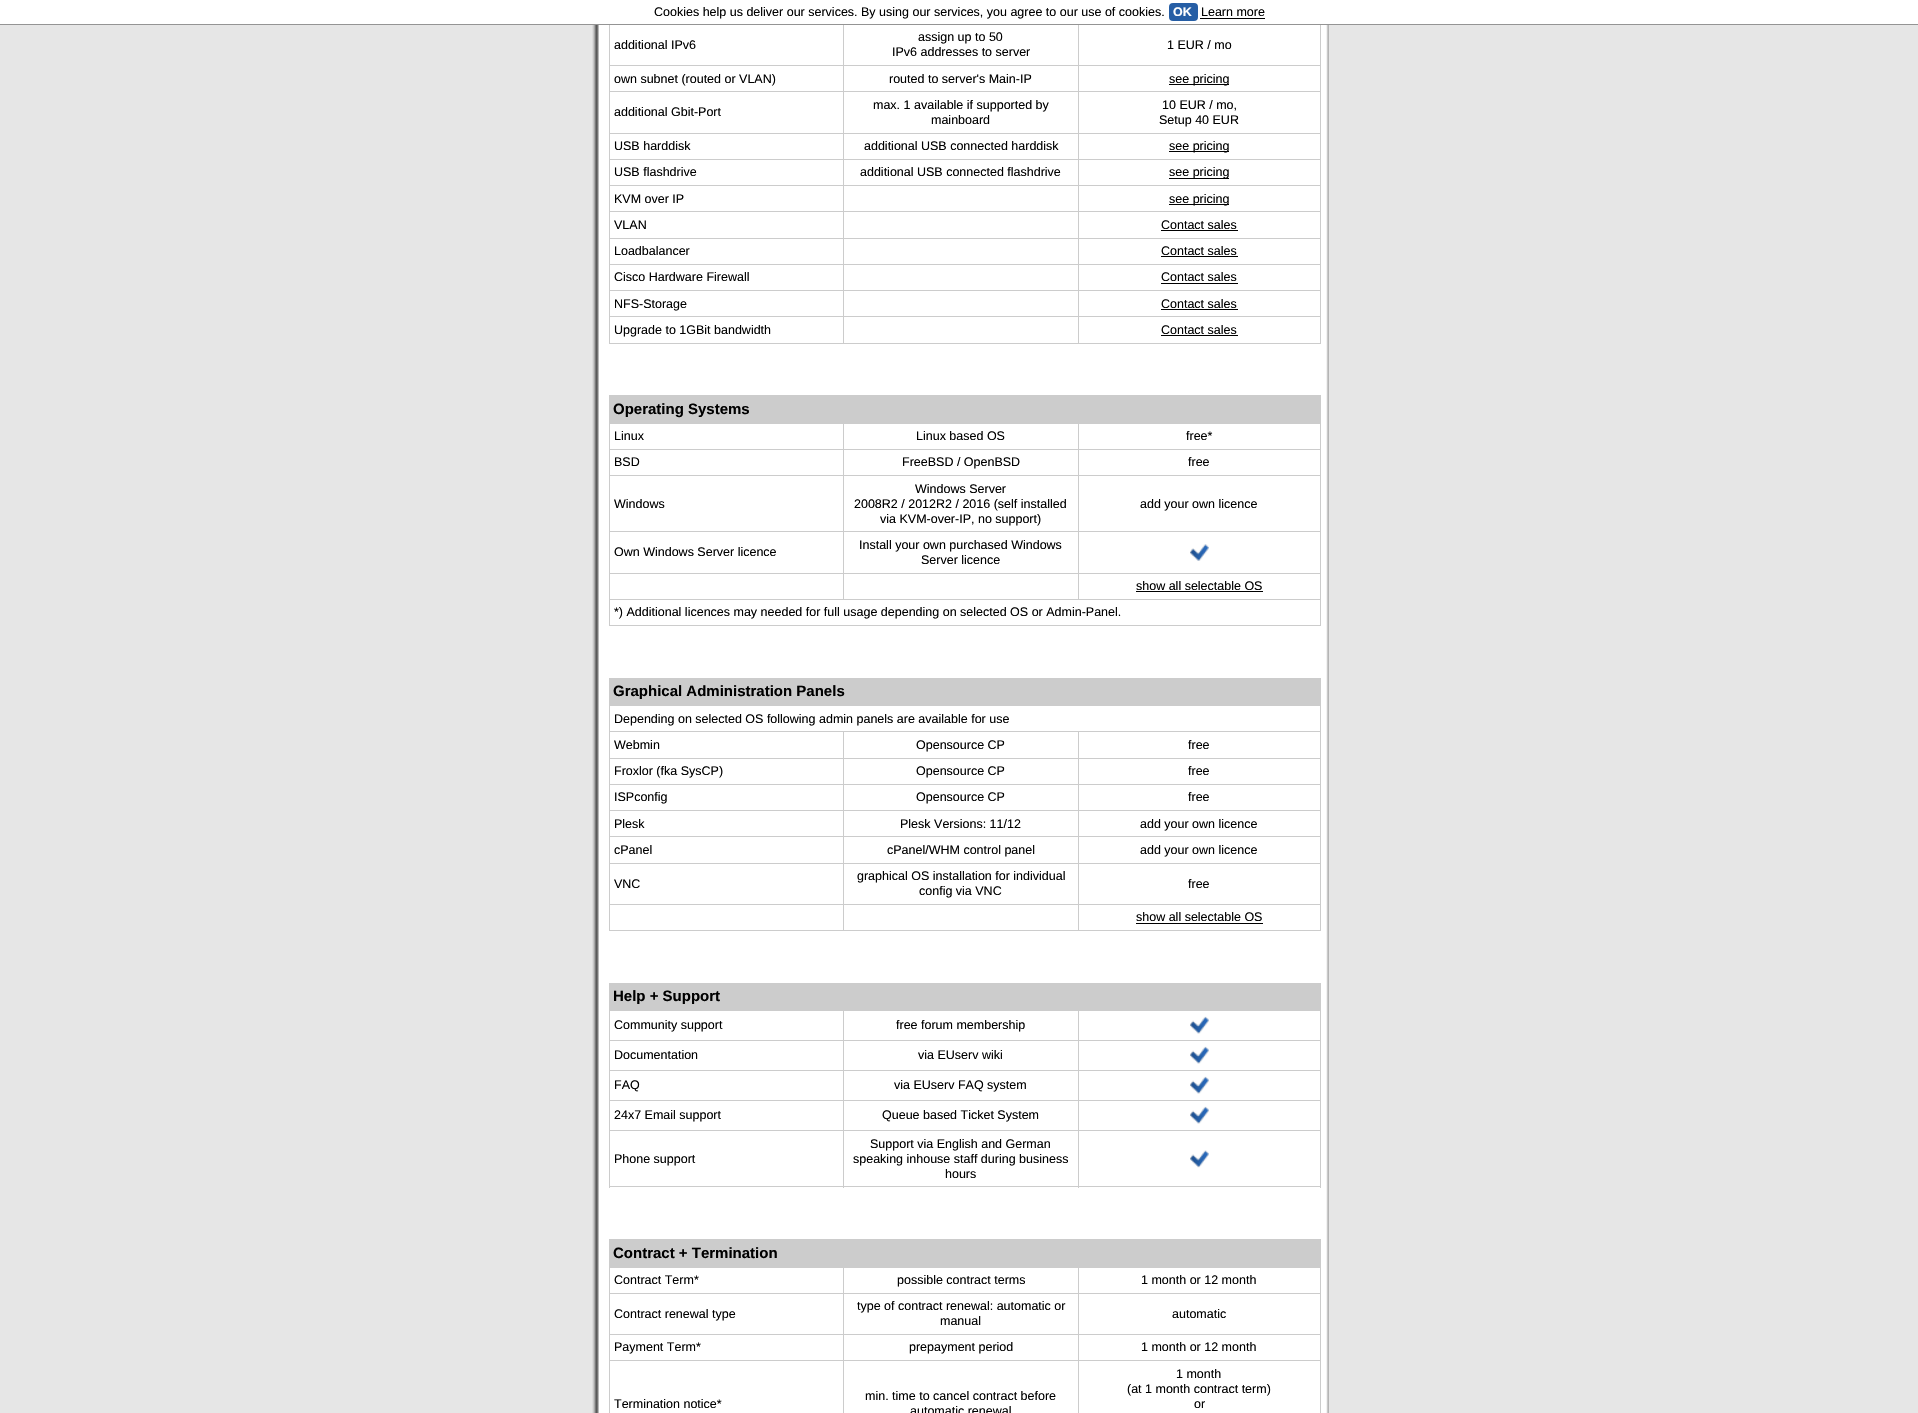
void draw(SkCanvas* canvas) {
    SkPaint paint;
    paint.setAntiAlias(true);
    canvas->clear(0xFFE6E6E6);
    paint.setColor(0xFFFFFFFF);
    canvas->drawRect(SkRect::MakeXYWH(0, 0, 1918, 24), paint);
    canvas->drawImageRect(SkImages::DeferredFromEncodedData(SkData::MakeFromFileName("img1.png")), SkRect::MakeXYWH(592, 25, 737, 1388), SkSamplingOptions());
    paint.setColor(0xFFCCCCCC);
    canvas->drawRect(SkRect::MakeXYWH(609, 343, 712, 1), paint);
    canvas->drawRect(SkRect::MakeXYWH(609, 25, 1, 319), paint);
    canvas->drawRect(SkRect::MakeXYWH(1320, 25, 1, 318), paint);
    canvas->drawRect(SkRect::MakeXYWH(1078, 65, 243, 1), paint);
    canvas->drawRect(SkRect::MakeXYWH(1078, 91, 243, 1), paint);
    canvas->drawRect(SkRect::MakeXYWH(1078, 133, 243, 1), paint);
    canvas->drawRect(SkRect::MakeXYWH(1078, 159, 243, 1), paint);
    canvas->drawRect(SkRect::MakeXYWH(1078, 185, 243, 1), paint);
    canvas->drawRect(SkRect::MakeXYWH(1078, 211, 243, 1), paint);
    canvas->drawRect(SkRect::MakeXYWH(1078, 238, 243, 1), paint);
    canvas->drawRect(SkRect::MakeXYWH(1078, 264, 243, 1), paint);
    canvas->drawRect(SkRect::MakeXYWH(1078, 290, 243, 1), paint);
    canvas->drawRect(SkRect::MakeXYWH(1078, 316, 243, 1), paint);
    canvas->drawRect(SkRect::MakeXYWH(1078, 316, 1, 28), paint);
    canvas->drawRect(SkRect::MakeXYWH(843, 316, 236, 1), paint);
    canvas->drawRect(SkRect::MakeXYWH(1078, 290, 1, 28), paint);
    canvas->drawRect(SkRect::MakeXYWH(843, 290, 236, 1), paint);
    canvas->drawRect(SkRect::MakeXYWH(1078, 264, 1, 27), paint);
    canvas->drawRect(SkRect::MakeXYWH(843, 264, 236, 1), paint);
    canvas->drawRect(SkRect::MakeXYWH(1078, 238, 1, 27), paint);
    canvas->drawRect(SkRect::MakeXYWH(843, 238, 236, 1), paint);
    canvas->drawRect(SkRect::MakeXYWH(1078, 211, 1, 28), paint);
    canvas->drawRect(SkRect::MakeXYWH(843, 211, 236, 1), paint);
    canvas->drawRect(SkRect::MakeXYWH(1078, 185, 1, 28), paint);
    canvas->drawRect(SkRect::MakeXYWH(843, 185, 236, 1), paint);
    canvas->drawRect(SkRect::MakeXYWH(1078, 159, 1, 27), paint);
    canvas->drawRect(SkRect::MakeXYWH(843, 159, 236, 1), paint);
    canvas->drawRect(SkRect::MakeXYWH(1078, 133, 1, 27), paint);
    canvas->drawRect(SkRect::MakeXYWH(843, 133, 236, 1), paint);
    canvas->drawRect(SkRect::MakeXYWH(1078, 91, 1, 43), paint);
    canvas->drawRect(SkRect::MakeXYWH(843, 91, 236, 1), paint);
    canvas->drawRect(SkRect::MakeXYWH(1078, 65, 1, 28), paint);
    canvas->drawRect(SkRect::MakeXYWH(843, 65, 236, 1), paint);
    canvas->drawRect(SkRect::MakeXYWH(843, 316, 1, 28), paint);
    canvas->drawRect(SkRect::MakeXYWH(609, 316, 235, 1), paint);
    canvas->drawRect(SkRect::MakeXYWH(843, 290, 1, 28), paint);
    canvas->drawRect(SkRect::MakeXYWH(609, 290, 235, 1), paint);
    canvas->drawRect(SkRect::MakeXYWH(843, 264, 1, 27), paint);
    canvas->drawRect(SkRect::MakeXYWH(609, 264, 235, 1), paint);
    canvas->drawRect(SkRect::MakeXYWH(843, 238, 1, 27), paint);
    canvas->drawRect(SkRect::MakeXYWH(609, 238, 235, 1), paint);
    canvas->drawRect(SkRect::MakeXYWH(843, 211, 1, 28), paint);
    canvas->drawRect(SkRect::MakeXYWH(609, 211, 235, 1), paint);
    canvas->drawRect(SkRect::MakeXYWH(843, 185, 1, 28), paint);
    canvas->drawRect(SkRect::MakeXYWH(609, 185, 235, 1), paint);
    canvas->drawRect(SkRect::MakeXYWH(843, 159, 1, 27), paint);
    canvas->drawRect(SkRect::MakeXYWH(609, 159, 235, 1), paint);
    canvas->drawRect(SkRect::MakeXYWH(843, 133, 1, 27), paint);
    canvas->drawRect(SkRect::MakeXYWH(609, 133, 235, 1), paint);
    canvas->drawRect(SkRect::MakeXYWH(843, 91, 1, 43), paint);
    canvas->drawRect(SkRect::MakeXYWH(609, 91, 235, 1), paint);
    canvas->drawRect(SkRect::MakeXYWH(843, 65, 1, 28), paint);
    canvas->drawRect(SkRect::MakeXYWH(609, 65, 235, 1), paint);
    canvas->drawRect(SkRect::MakeXYWH(843, 24, 1, 42), paint);
    canvas->drawRect(SkRect::MakeXYWH(1078, 24, 1, 42), paint);
    paint.setColor(0xFF949494);
    canvas->drawRect(SkRect::MakeXYWH(0, 24, 1918, 1), paint);
    SkFont font1(fontMgr->matchFamilyStyle("Liberation Sans", SkFontStyle::Normal()), 12.5f);
    font1.setSubpixel(true);
    paint.setColor(0xFF000000);
    canvas->drawString("Cookies help us deliver our services. By using our services, you agree to our use of cookies.", 654, 16, font1, paint);
    paint.setColor(0xFF265EA5);
    canvas->drawRoundRect(SkRect::MakeXYWH(1169, 3, 29, 18), 4, 4, paint);
    SkFont font2(fontMgr->matchFamilyStyle("Liberation Sans", SkFontStyle::Bold()), 12.5f);
    font2.setSubpixel(true);
    paint.setColor(0xFFFFFFFF);
    canvas->drawString("OK", 1173, 16, font2, paint);
    paint.setColor(0xFF000000);
    canvas->drawString("Learn more", 1201, 16, font1, paint);
    canvas->drawRect(SkRect::MakeXYWH(1200, 18, 65, 1), paint);
    canvas->drawString("additional IPv6", 614, 49, font1, paint);
    canvas->drawString("assign up to 50", 918, 41, font1, paint);
    canvas->drawString("IPv6 addresses to server", 892, 56, font1, paint);
    canvas->drawString("1 EUR / mo", 1167, 49, font1, paint);
    canvas->drawString("own subnet (routed or VLAN)", 614, 83, font1, paint);
    canvas->drawString("routed to server's Main-IP", 889, 83, font1, paint);
    canvas->drawRect(SkRect::MakeXYWH(1169, 84, 60, 1), paint);
    canvas->drawString("see pricing", 1169, 83, font1, paint);
    canvas->drawString("additional Gbit-Port", 614, 116, font1, paint);
    canvas->drawString("max. 1 available if supported by", 873, 109, font1, paint);
    canvas->drawString("mainboard", 931, 124, font1, paint);
    canvas->drawString("10 EUR / mo,", 1162, 109, font1, paint);
    canvas->drawString("Setup 40 EUR", 1159, 124, font1, paint);
    canvas->drawString("USB harddisk", 614, 150, font1, paint);
    canvas->drawString("additional USB connected harddisk", 864, 150, font1, paint);
    canvas->drawRect(SkRect::MakeXYWH(1169, 151, 60, 1), paint);
    canvas->drawString("see pricing", 1169, 150, font1, paint);
    canvas->drawString("USB flashdrive", 614, 176, font1, paint);
    canvas->drawString("additional USB connected flashdrive", 860, 176, font1, paint);
    canvas->drawRect(SkRect::MakeXYWH(1169, 178, 60, 1), paint);
    canvas->drawString("see pricing", 1169, 176, font1, paint);
    canvas->drawString("KVM over IP", 614, 203, font1, paint);
    canvas->drawRect(SkRect::MakeXYWH(1169, 204, 60, 1), paint);
    canvas->drawString("see pricing", 1169, 203, font1, paint);
    canvas->drawString("VLAN", 614, 229, font1, paint);
    canvas->drawString("Contact sales", 1161, 229, font1, paint);
    canvas->drawRect(SkRect::MakeXYWH(1161, 230, 77, 1), paint);
    canvas->drawString("Loadbalancer", 614, 255, font1, paint);
    canvas->drawString("Contact sales", 1161, 255, font1, paint);
    canvas->drawRect(SkRect::MakeXYWH(1161, 256, 77, 1), paint);
    canvas->drawString("Cisco Hardware Firewall", 614, 281, font1, paint);
    canvas->drawString("Contact sales", 1161, 281, font1, paint);
    canvas->drawRect(SkRect::MakeXYWH(1161, 283, 77, 1), paint);
    canvas->drawString("NFS-Storage", 614, 308, font1, paint);
    canvas->drawString("Contact sales", 1161, 308, font1, paint);
    canvas->drawRect(SkRect::MakeXYWH(1161, 309, 77, 1), paint);
    canvas->drawString("Upgrade to 1GBit bandwidth", 614, 334, font1, paint);
    canvas->drawString("Contact sales", 1161, 334, font1, paint);
    canvas->drawRect(SkRect::MakeXYWH(1161, 335, 77, 1), paint);
    paint.setColor(0xFFCCCCCC);
    canvas->drawRect(SkRect::MakeXYWH(609, 395, 712, 28), paint);
    SkFont font3(fontMgr->matchFamilyStyle("Liberation Sans", SkFontStyle::Bold()), 15);
    font3.setSubpixel(true);
    paint.setColor(0xFF000000);
    canvas->drawString("Operating Systems", 613, 414, font3, paint);
    paint.setColor(0xFFCCCCCC);
    canvas->drawRect(SkRect::MakeXYWH(610, 423, 711, 202), paint);
    canvas->drawRect(SkRect::MakeXYWH(609, 625, 712, 1), paint);
    canvas->drawRect(SkRect::MakeXYWH(609, 423, 1, 203), paint);
    paint.setColor(0xFFFFFFFF);
    canvas->drawRect(SkRect::MakeXYWH(610, 424, 233, 25), paint);
    paint.setColor(0xFF000000);
    canvas->drawString("Linux", 614, 440, font1, paint);
    paint.setColor(0xFFFFFFFF);
    canvas->drawRect(SkRect::MakeXYWH(844, 424, 234, 25), paint);
    paint.setColor(0xFF000000);
    canvas->drawString("Linux based OS", 916, 440, font1, paint);
    paint.setColor(0xFFFFFFFF);
    canvas->drawRect(SkRect::MakeXYWH(1079, 424, 241, 25), paint);
    paint.setColor(0xFF000000);
    canvas->drawString("free*", 1186, 440, font1, paint);
    paint.setColor(0xFFFFFFFF);
    canvas->drawRect(SkRect::MakeXYWH(610, 450, 233, 25), paint);
    paint.setColor(0xFF000000);
    canvas->drawString("BSD", 614, 466, font1, paint);
    paint.setColor(0xFFFFFFFF);
    canvas->drawRect(SkRect::MakeXYWH(844, 450, 234, 25), paint);
    paint.setColor(0xFF000000);
    canvas->drawString("FreeBSD / OpenBSD", 902, 466, font1, paint);
    paint.setColor(0xFFFFFFFF);
    canvas->drawRect(SkRect::MakeXYWH(1079, 450, 241, 25), paint);
    paint.setColor(0xFF000000);
    canvas->drawString("free", 1188, 466, font1, paint);
    paint.setColor(0xFFFFFFFF);
    canvas->drawRect(SkRect::MakeXYWH(610, 476, 233, 97), paint);
    paint.setColor(0xFF000000);
    canvas->drawString("Windows", 614, 508, font1, paint);
    paint.setColor(0xFFFFFFFF);
    canvas->drawRect(SkRect::MakeXYWH(844, 476, 234, 97), paint);
    paint.setColor(0xFF000000);
    canvas->drawString("Windows Server", 915, 493, font1, paint);
    canvas->drawString("2008R2 / 2012R2 / 2016 (self installed", 854, 508, font1, paint);
    canvas->drawString("via KVM-over-IP, no support)", 880, 523, font1, paint);
    paint.setColor(0xFFFFFFFF);
    canvas->drawRect(SkRect::MakeXYWH(1079, 476, 241, 97), paint);
    paint.setColor(0xFF000000);
    canvas->drawString("add your own licence", 1140, 508, font1, paint);
    paint.setColor(0xFFCCCCCC);
    canvas->drawRect(SkRect::MakeXYWH(609, 531, 712, 1), paint);
    canvas->drawImageRect(SkImages::DeferredFromEncodedData(SkData::MakeFromFileName("img2.png")), SkRect::MakeXYWH(1190, 544, 19, 17), SkSamplingOptions());
    paint.setColor(0xFF000000);
    canvas->drawString("Own Windows Server licence", 614, 556, font1, paint);
    canvas->drawString("Install your own purchased Windows", 859, 549, font1, paint);
    canvas->drawString("Server licence", 921, 564, font1, paint);
    paint.setColor(0xFFFFFFFF);
    canvas->drawRect(SkRect::MakeXYWH(610, 574, 233, 25), paint);
    canvas->drawRect(SkRect::MakeXYWH(844, 574, 234, 25), paint);
    canvas->drawRect(SkRect::MakeXYWH(1079, 574, 241, 25), paint);
    paint.setColor(0xFF000000);
    canvas->drawString("show all selectable OS", 1136, 590, font1, paint);
    canvas->drawRect(SkRect::MakeXYWH(1136, 591, 127, 1), paint);
    paint.setColor(0xFFFFFFFF);
    canvas->drawRect(SkRect::MakeXYWH(610, 600, 710, 25), paint);
    paint.setColor(0xFF000000);
    canvas->drawString("*) Additional licences may needed for full usage depending on selected OS or Admin-Panel.", 614, 616, font1, paint);
    paint.setColor(0xFFCCCCCC);
    canvas->drawRect(SkRect::MakeXYWH(609, 678, 712, 27), paint);
    paint.setColor(0xFF000000);
    canvas->drawString("Graphical Administration Panels", 613, 696, font3, paint);
    paint.setColor(0xFFCCCCCC);
    canvas->drawRect(SkRect::MakeXYWH(610, 705, 711, 225), paint);
    canvas->drawRect(SkRect::MakeXYWH(609, 930, 712, 1), paint);
    canvas->drawRect(SkRect::MakeXYWH(609, 705, 1, 226), paint);
    paint.setColor(0xFFFFFFFF);
    canvas->drawRect(SkRect::MakeXYWH(610, 706, 710, 27), paint);
    paint.setColor(0xFF000000);
    canvas->drawString("Depending on selected OS following admin panels are available for use", 614, 723, font1, paint);
    paint.setColor(0xFFFFFFFF);
    canvas->drawRect(SkRect::MakeXYWH(610, 733, 233, 25), paint);
    paint.setColor(0xFFCCCCCC);
    canvas->drawRect(SkRect::MakeXYWH(1078, 731, 243, 1), paint);
    canvas->drawRect(SkRect::MakeXYWH(1078, 731, 1, 2), paint);
    canvas->drawRect(SkRect::MakeXYWH(843, 731, 236, 1), paint);
    canvas->drawRect(SkRect::MakeXYWH(843, 731, 1, 2), paint);
    canvas->drawRect(SkRect::MakeXYWH(609, 731, 235, 1), paint);
    paint.setColor(0xFF000000);
    canvas->drawString("Webmin", 614, 749, font1, paint);
    paint.setColor(0xFFFFFFFF);
    canvas->drawRect(SkRect::MakeXYWH(844, 733, 234, 25), paint);
    paint.setColor(0xFF000000);
    canvas->drawString("Opensource CP", 916, 749, font1, paint);
    paint.setColor(0xFFFFFFFF);
    canvas->drawRect(SkRect::MakeXYWH(1079, 733, 241, 25), paint);
    paint.setColor(0xFF000000);
    canvas->drawString("free", 1188, 749, font1, paint);
    paint.setColor(0xFFFFFFFF);
    canvas->drawRect(SkRect::MakeXYWH(610, 759, 233, 25), paint);
    paint.setColor(0xFF000000);
    canvas->drawString("Froxlor (fka SysCP)", 614, 775, font1, paint);
    paint.setColor(0xFFFFFFFF);
    canvas->drawRect(SkRect::MakeXYWH(844, 759, 234, 25), paint);
    paint.setColor(0xFF000000);
    canvas->drawString("Opensource CP", 916, 775, font1, paint);
    paint.setColor(0xFFFFFFFF);
    canvas->drawRect(SkRect::MakeXYWH(1079, 759, 241, 25), paint);
    paint.setColor(0xFF000000);
    canvas->drawString("free", 1188, 775, font1, paint);
    paint.setColor(0xFFFFFFFF);
    canvas->drawRect(SkRect::MakeXYWH(610, 785, 233, 25), paint);
    paint.setColor(0xFF000000);
    canvas->drawString("ISPconfig", 614, 801, font1, paint);
    paint.setColor(0xFFFFFFFF);
    canvas->drawRect(SkRect::MakeXYWH(844, 785, 234, 25), paint);
    paint.setColor(0xFF000000);
    canvas->drawString("Opensource CP", 916, 801, font1, paint);
    paint.setColor(0xFFFFFFFF);
    canvas->drawRect(SkRect::MakeXYWH(1079, 785, 241, 25), paint);
    paint.setColor(0xFF000000);
    canvas->drawString("free", 1188, 801, font1, paint);
    paint.setColor(0xFFFFFFFF);
    canvas->drawRect(SkRect::MakeXYWH(610, 811, 233, 52), paint);
    paint.setColor(0xFF000000);
    canvas->drawString("Plesk", 614, 828, font1, paint);
    paint.setColor(0xFFFFFFFF);
    canvas->drawRect(SkRect::MakeXYWH(844, 811, 234, 52), paint);
    paint.setColor(0xFF000000);
    canvas->drawString("Plesk Versions: 11/12", 900, 828, font1, paint);
    paint.setColor(0xFFFFFFFF);
    canvas->drawRect(SkRect::MakeXYWH(1079, 811, 241, 52), paint);
    paint.setColor(0xFF000000);
    canvas->drawString("add your own licence", 1140, 828, font1, paint);
    canvas->drawString("cPanel", 614, 854, font1, paint);
    canvas->drawString("cPanel/WHM control panel", 887, 854, font1, paint);
    paint.setColor(0xFFCCCCCC);
    canvas->drawRect(SkRect::MakeXYWH(609, 836, 712, 1), paint);
    paint.setColor(0xFF000000);
    canvas->drawString("add your own licence", 1140, 854, font1, paint);
    paint.setColor(0xFFFFFFFF);
    canvas->drawRect(SkRect::MakeXYWH(610, 864, 233, 40), paint);
    paint.setColor(0xFF000000);
    canvas->drawString("VNC", 614, 888, font1, paint);
    paint.setColor(0xFFFFFFFF);
    canvas->drawRect(SkRect::MakeXYWH(844, 864, 234, 40), paint);
    paint.setColor(0xFF000000);
    canvas->drawString("graphical OS installation for individual", 857, 880, font1, paint);
    canvas->drawString("config via VNC", 919, 895, font1, paint);
    paint.setColor(0xFFFFFFFF);
    canvas->drawRect(SkRect::MakeXYWH(1079, 864, 241, 40), paint);
    paint.setColor(0xFF000000);
    canvas->drawString("free", 1188, 888, font1, paint);
    paint.setColor(0xFFFFFFFF);
    canvas->drawRect(SkRect::MakeXYWH(610, 905, 233, 25), paint);
    canvas->drawRect(SkRect::MakeXYWH(844, 905, 234, 25), paint);
    canvas->drawRect(SkRect::MakeXYWH(1079, 905, 241, 25), paint);
    paint.setColor(0xFF000000);
    canvas->drawString("show all selectable OS", 1136, 921, font1, paint);
    canvas->drawRect(SkRect::MakeXYWH(1136, 923, 127, 1), paint);
    paint.setColor(0xFFCCCCCC);
    canvas->drawRect(SkRect::MakeXYWH(609, 983, 712, 27), paint);
    paint.setColor(0xFF000000);
    canvas->drawString("Help + Support", 613, 1001, font3, paint);
    paint.setColor(0xFFCCCCCC);
    canvas->drawRect(SkRect::MakeXYWH(610, 1010, 711, 178), paint);
    paint.setColor(0xFFFFFFFF);
    canvas->drawRect(SkRect::MakeXYWH(610, 1131, 233, 57), paint);
    canvas->drawRect(SkRect::MakeXYWH(844, 1131, 234, 57), paint);
    canvas->drawRect(SkRect::MakeXYWH(1079, 1131, 241, 57), paint);
    paint.setColor(0xFFCCCCCC);
    canvas->drawRect(SkRect::MakeXYWH(609, 1186, 712, 1), paint);
    canvas->drawRect(SkRect::MakeXYWH(609, 1010, 1, 178), paint);
    paint.setColor(0xFFFFFFFF);
    canvas->drawRect(SkRect::MakeXYWH(610, 1011, 233, 29), paint);
    paint.setColor(0xFF000000);
    canvas->drawString("Community support", 614, 1029, font1, paint);
    paint.setColor(0xFFFFFFFF);
    canvas->drawRect(SkRect::MakeXYWH(844, 1011, 234, 29), paint);
    paint.setColor(0xFF000000);
    canvas->drawString("free forum membership", 896, 1029, font1, paint);
    paint.setColor(0xFFFFFFFF);
    canvas->drawRect(SkRect::MakeXYWH(1079, 1011, 241, 29), paint);
    canvas->drawImageRect(SkImages::DeferredFromEncodedData(SkData::MakeFromFileName("img3.png")), SkRect::MakeXYWH(1190, 1016, 19, 18), SkSamplingOptions());
    canvas->drawRect(SkRect::MakeXYWH(610, 1041, 233, 29), paint);
    paint.setColor(0xFF000000);
    canvas->drawString("Documentation", 614, 1059, font1, paint);
    paint.setColor(0xFFFFFFFF);
    canvas->drawRect(SkRect::MakeXYWH(844, 1041, 234, 29), paint);
    paint.setColor(0xFF000000);
    canvas->drawString("via EUserv wiki", 918, 1059, font1, paint);
    paint.setColor(0xFFFFFFFF);
    canvas->drawRect(SkRect::MakeXYWH(1079, 1041, 241, 29), paint);
    canvas->drawImageRect(SkImages::DeferredFromEncodedData(SkData::MakeFromFileName("img3.png")), SkRect::MakeXYWH(1190, 1046, 19, 18), SkSamplingOptions());
    canvas->drawRect(SkRect::MakeXYWH(610, 1071, 233, 29), paint);
    paint.setColor(0xFF000000);
    canvas->drawString("FAQ", 614, 1089, font1, paint);
    paint.setColor(0xFFFFFFFF);
    canvas->drawRect(SkRect::MakeXYWH(844, 1071, 234, 29), paint);
    paint.setColor(0xFF000000);
    canvas->drawString("via EUserv FAQ system", 894, 1089, font1, paint);
    paint.setColor(0xFFFFFFFF);
    canvas->drawRect(SkRect::MakeXYWH(1079, 1071, 241, 29), paint);
    canvas->drawImageRect(SkImages::DeferredFromEncodedData(SkData::MakeFromFileName("img3.png")), SkRect::MakeXYWH(1190, 1076, 19, 18), SkSamplingOptions());
    canvas->drawRect(SkRect::MakeXYWH(610, 1101, 233, 29), paint);
    paint.setColor(0xFF000000);
    canvas->drawString("24x7 Email support", 614, 1119, font1, paint);
    paint.setColor(0xFFFFFFFF);
    canvas->drawRect(SkRect::MakeXYWH(844, 1101, 234, 29), paint);
    paint.setColor(0xFF000000);
    canvas->drawString("Queue based Ticket System", 882, 1119, font1, paint);
    paint.setColor(0xFFFFFFFF);
    canvas->drawRect(SkRect::MakeXYWH(1079, 1101, 241, 29), paint);
    canvas->drawImageRect(SkImages::DeferredFromEncodedData(SkData::MakeFromFileName("img3.png")), SkRect::MakeXYWH(1190, 1106, 19, 18), SkSamplingOptions());
    paint.setColor(0xFF000000);
    canvas->drawString("Phone support", 614, 1163, font1, paint);
    canvas->drawString("Support via English and German", 870, 1148, font1, paint);
    canvas->drawString("speaking inhouse staff during business", 853, 1163, font1, paint);
    canvas->drawString("hours", 945, 1178, font1, paint);
    canvas->drawImageRect(SkImages::DeferredFromEncodedData(SkData::MakeFromFileName("img4.png")), SkRect::MakeXYWH(1190, 1150, 19, 18), SkSamplingOptions());
    paint.setColor(0xFFCCCCCC);
    canvas->drawRect(SkRect::MakeXYWH(609, 1239, 712, 27), paint);
    paint.setColor(0xFF000000);
    canvas->drawString("Contract + Termination", 613, 1258, font3, paint);
    paint.setColor(0xFFCCCCCC);
    canvas->drawRect(SkRect::MakeXYWH(609, 1266, 712, 147), paint);
    paint.setColor(0xFFFFFFFF);
    canvas->drawRect(SkRect::MakeXYWH(610, 1268, 233, 25), paint);
    paint.setColor(0xFF000000);
    canvas->drawString("Contract Term*", 614, 1284, font1, paint);
    paint.setColor(0xFFFFFFFF);
    canvas->drawRect(SkRect::MakeXYWH(844, 1268, 234, 25), paint);
    paint.setColor(0xFF000000);
    canvas->drawString("possible contract terms", 897, 1284, font1, paint);
    paint.setColor(0xFFFFFFFF);
    canvas->drawRect(SkRect::MakeXYWH(1079, 1268, 241, 25), paint);
    paint.setColor(0xFF000000);
    canvas->drawString("1 month or 12 month", 1141, 1284, font1, paint);
    paint.setColor(0xFFFFFFFF);
    canvas->drawRect(SkRect::MakeXYWH(610, 1294, 233, 40), paint);
    paint.setColor(0xFF000000);
    canvas->drawString("Contract renewal type", 614, 1318, font1, paint);
    paint.setColor(0xFFFFFFFF);
    canvas->drawRect(SkRect::MakeXYWH(844, 1294, 234, 40), paint);
    paint.setColor(0xFF000000);
    canvas->drawString("type of contract renewal: automatic or", 857, 1310, font1, paint);
    canvas->drawString("manual", 940, 1325, font1, paint);
    paint.setColor(0xFFFFFFFF);
    canvas->drawRect(SkRect::MakeXYWH(1079, 1294, 241, 40), paint);
    paint.setColor(0xFF000000);
    canvas->drawString("automatic", 1172, 1318, font1, paint);
    paint.setColor(0xFFFFFFFF);
    canvas->drawRect(SkRect::MakeXYWH(610, 1335, 233, 25), paint);
    paint.setColor(0xFF000000);
    canvas->drawString("Payment Term*", 614, 1351, font1, paint);
    paint.setColor(0xFFFFFFFF);
    canvas->drawRect(SkRect::MakeXYWH(844, 1335, 234, 25), paint);
    paint.setColor(0xFF000000);
    canvas->drawString("prepayment period", 909, 1351, font1, paint);
    paint.setColor(0xFFFFFFFF);
    canvas->drawRect(SkRect::MakeXYWH(1079, 1335, 241, 25), paint);
    paint.setColor(0xFF000000);
    canvas->drawString("1 month or 12 month", 1141, 1351, font1, paint);
    paint.setColor(0xFFFFFFFF);
    canvas->drawRect(SkRect::MakeXYWH(610, 1361, 233, 52), paint);
    paint.setColor(0xFF000000);
    canvas->drawString("Termination notice*", 614, 1408, font1, paint);
    paint.setColor(0xFFFFFFFF);
    canvas->drawRect(SkRect::MakeXYWH(844, 1361, 234, 52), paint);
    paint.setColor(0xFF000000);
    canvas->drawString("min. time to cancel contract before", 865, 1400, font1, paint);
    canvas->drawString("automatic renewal", 910, 1415, font1, paint);
    paint.setColor(0xFFFFFFFF);
    canvas->drawRect(SkRect::MakeXYWH(1079, 1361, 241, 52), paint);
    paint.setColor(0xFF000000);
    canvas->drawString("1 month", 1176, 1378, font1, paint);
    canvas->drawString("(at 1 month contract term)", 1127, 1393, font1, paint);
    canvas->drawString("or", 1194, 1408, font1, paint);
}
